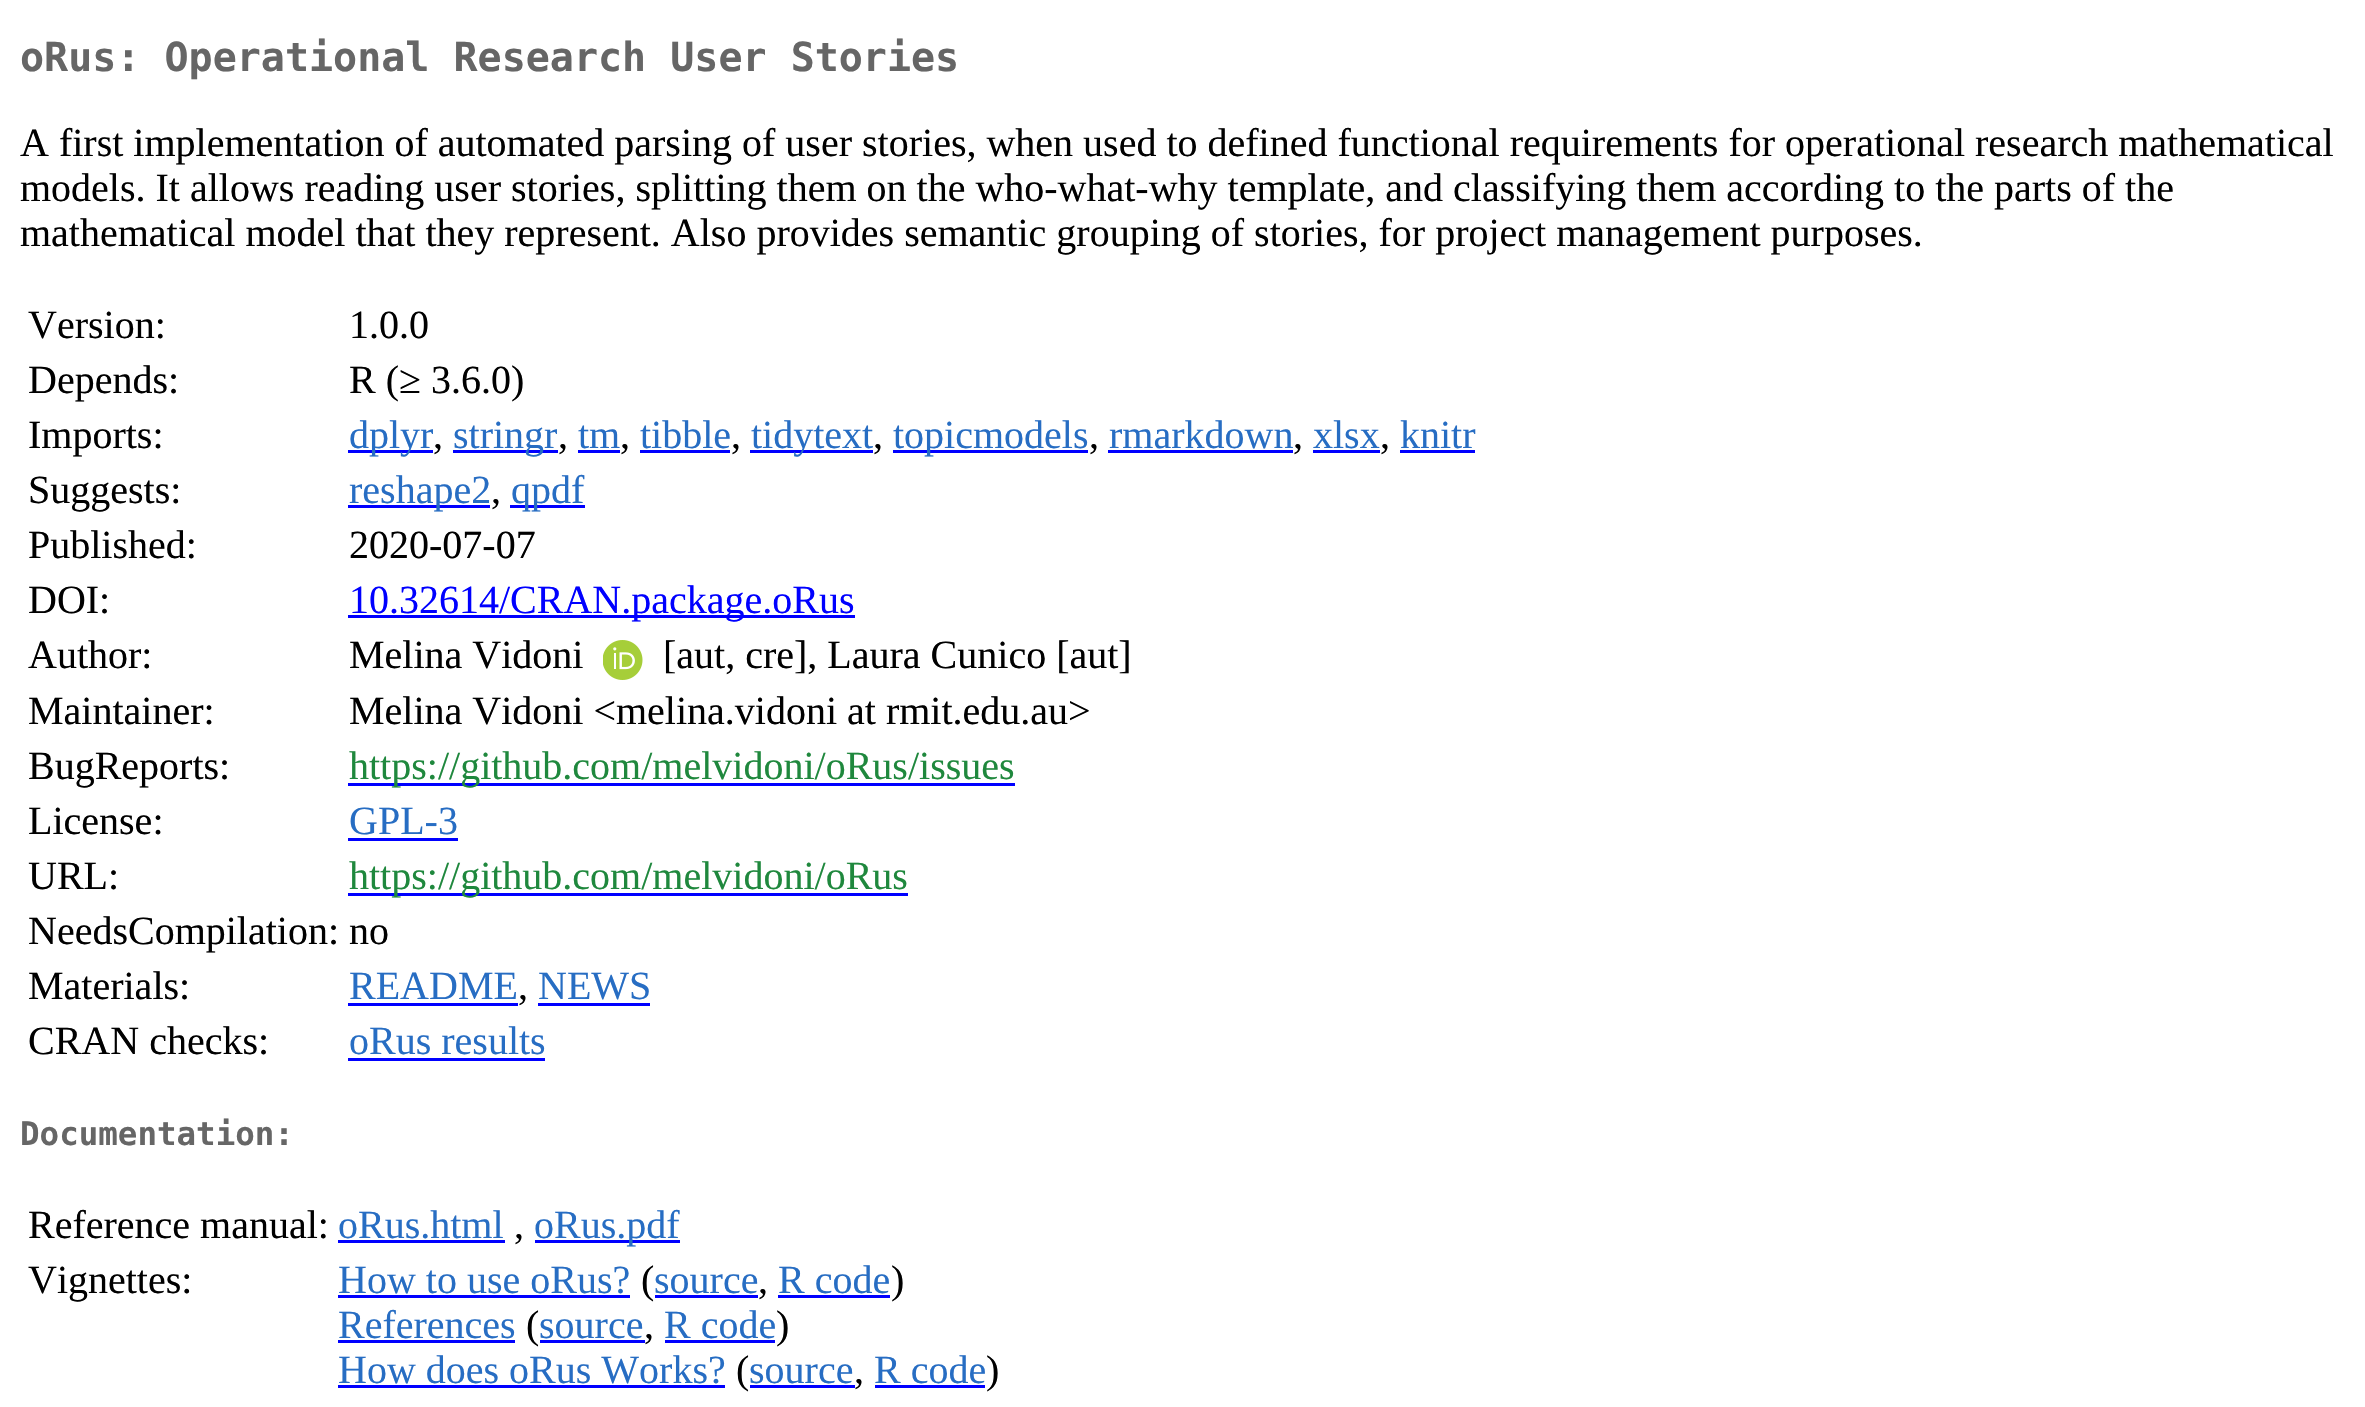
void draw(SkCanvas* canvas) {
    SkPaint paint;
    paint.setAntiAlias(true);
    canvas->clear(0xFFFFFFFF);
    SkFont font1(fontMgr->matchFamilyStyle("DejaVu Sans Mono", SkFontStyle::Bold()), 40);
    font1.setSubpixel(true);
    paint.setColor(0xFF666666);
    canvas->drawString("oRus: Operational Research User Stories", 20, 71, font1, paint);
    SkFont font2(fontMgr->matchFamilyStyle("Liberation Serif", SkFontStyle::Normal()), 40);
    font2.setSubpixel(true);
    paint.setColor(0xFF000000);
    canvas->drawString("A first implementation of automated parsing of user stories, when used to defined functional requirements for operational research mathematical", 20, 156, font2, paint);
    canvas->drawString("models. It allows reading user stories, splitting them on the who-what-why template, and classifying them according to the parts of the", 20, 201, font2, paint);
    canvas->drawString("mathematical model that they represent. Also provides semantic grouping of stories, for project management purposes.", 20, 246, font2, paint);
    canvas->drawString("Version:", 28, 338, font2, paint);
    canvas->drawString("1.0.0", 349, 338, font2, paint);
    canvas->drawString("Depends:", 28, 393, font2, paint);
    canvas->drawString("R (≥ 3.6.0)", 349, 393, font2, paint);
    canvas->drawString("Imports:", 28, 448, font2, paint);
    paint.setColor(0xFF0000FF);
    canvas->drawRect(SkRect::MakeXYWH(348, 450, 85, 3), paint);
    paint.setColor(0xFF276DC3);
    canvas->drawString("dplyr", 349, 448, font2, paint);
    paint.setColor(0xFF000000);
    canvas->drawString(",", 433, 448, font2, paint);
    paint.setColor(0xFF0000FF);
    canvas->drawRect(SkRect::MakeXYWH(453, 450, 105, 3), paint);
    paint.setColor(0xFF276DC3);
    canvas->drawString("stringr", 453, 448, font2, paint);
    paint.setColor(0xFF000000);
    canvas->drawString(",", 558, 448, font2, paint);
    paint.setColor(0xFF276DC3);
    canvas->drawString("tm", 578, 448, font2, paint);
    paint.setColor(0xFF0000FF);
    canvas->drawRect(SkRect::MakeXYWH(578, 450, 42, 3), paint);
    paint.setColor(0xFF000000);
    canvas->drawString(",", 620, 448, font2, paint);
    paint.setColor(0xFF276DC3);
    canvas->drawString("tibble", 640, 448, font2, paint);
    paint.setColor(0xFF0000FF);
    canvas->drawRect(SkRect::MakeXYWH(640, 450, 90, 3), paint);
    paint.setColor(0xFF000000);
    canvas->drawString(",", 731, 448, font2, paint);
    paint.setColor(0xFF0000FF);
    canvas->drawRect(SkRect::MakeXYWH(750, 450, 123, 3), paint);
    paint.setColor(0xFF276DC3);
    canvas->drawString("tidytext", 751, 448, font2, paint);
    paint.setColor(0xFF000000);
    canvas->drawString(",", 873, 448, font2, paint);
    paint.setColor(0xFF0000FF);
    canvas->drawRect(SkRect::MakeXYWH(893, 450, 195, 3), paint);
    paint.setColor(0xFF276DC3);
    canvas->drawString("topicmodels", 893, 448, font2, paint);
    paint.setColor(0xFF000000);
    canvas->drawString(",", 1089, 448, font2, paint);
    paint.setColor(0xFF276DC3);
    canvas->drawString("rmarkdown", 1109, 448, font2, paint);
    paint.setColor(0xFF0000FF);
    canvas->drawRect(SkRect::MakeXYWH(1108, 450, 185, 3), paint);
    paint.setColor(0xFF000000);
    canvas->drawString(",", 1293, 448, font2, paint);
    paint.setColor(0xFF276DC3);
    canvas->drawString("xlsx", 1313, 448, font2, paint);
    paint.setColor(0xFF0000FF);
    canvas->drawRect(SkRect::MakeXYWH(1313, 450, 67, 3), paint);
    paint.setColor(0xFF000000);
    canvas->drawString(",", 1380, 448, font2, paint);
    paint.setColor(0xFF276DC3);
    canvas->drawString("knitr", 1400, 448, font2, paint);
    paint.setColor(0xFF0000FF);
    canvas->drawRect(SkRect::MakeXYWH(1400, 450, 75, 3), paint);
    paint.setColor(0xFF000000);
    canvas->drawString("Suggests:", 28, 503, font2, paint);
    paint.setColor(0xFF0000FF);
    canvas->drawRect(SkRect::MakeXYWH(348, 505, 142, 3), paint);
    paint.setColor(0xFF276DC3);
    canvas->drawString("reshape2", 349, 503, font2, paint);
    paint.setColor(0xFF000000);
    canvas->drawString(",", 491, 503, font2, paint);
    paint.setColor(0xFF0000FF);
    canvas->drawRect(SkRect::MakeXYWH(510, 505, 75, 3), paint);
    paint.setColor(0xFF276DC3);
    canvas->drawString("qpdf", 511, 503, font2, paint);
    paint.setColor(0xFF000000);
    canvas->drawString("Published:", 28, 558, font2, paint);
    canvas->drawString("2020-07-07", 349, 558, font2, paint);
    canvas->drawString("DOI:", 28, 613, font2, paint);
    paint.setColor(0xFF0000FF);
    canvas->drawRect(SkRect::MakeXYWH(348, 615, 507, 3), paint);
    canvas->drawString("10.32614/CRAN.package.oRus", 349, 613, font2, paint);
    paint.setColor(0xFF000000);
    canvas->drawString("Author:", 28, 668, font2, paint);
    canvas->drawString("Melina Vidoni", 349, 668, font2, paint);
    canvas->drawImageRect(SkImages::DeferredFromEncodedData(SkData::MakeFromFileName("img1.png")), SkRect::MakeXYWH(603, 640, 40, 40), SkSamplingOptions());
    canvas->drawString("[aut, cre], Laura Cunico [aut]", 663, 668, font2, paint);
    canvas->drawString("Maintainer:", 28, 724, font2, paint);
    canvas->drawString("Melina Vidoni <melina.vidoni at rmit.edu.au>", 349, 724, font2, paint);
    canvas->drawString("BugReports:", 28, 779, font2, paint);
    paint.setColor(0xFF0000FF);
    canvas->drawRect(SkRect::MakeXYWH(348, 783, 667, 3), paint);
    paint.setColor(0xFF1F883D);
    canvas->drawString("https://github.com/melvidoni/oRus/issues", 349, 779, font2, paint);
    paint.setColor(0xFF000000);
    canvas->drawString("License:", 28, 834, font2, paint);
    paint.setColor(0xFF276DC3);
    canvas->drawString("GPL-3", 349, 834, font2, paint);
    paint.setColor(0xFF0000FF);
    canvas->drawRect(SkRect::MakeXYWH(348, 838, 110, 3), paint);
    paint.setColor(0xFF000000);
    canvas->drawString("URL:", 28, 889, font2, paint);
    paint.setColor(0xFF0000FF);
    canvas->drawRect(SkRect::MakeXYWH(348, 893, 560, 3), paint);
    paint.setColor(0xFF1F883D);
    canvas->drawString("https://github.com/melvidoni/oRus", 349, 889, font2, paint);
    paint.setColor(0xFF000000);
    canvas->drawString("NeedsCompilation: no", 28, 944, font2, paint);
    canvas->drawString("Materials:", 28, 999, font2, paint);
    paint.setColor(0xFF276DC3);
    canvas->drawString("README", 349, 999, font2, paint);
    paint.setColor(0xFF0000FF);
    canvas->drawRect(SkRect::MakeXYWH(348, 1003, 170, 3), paint);
    paint.setColor(0xFF000000);
    canvas->drawString(",", 518, 999, font2, paint);
    paint.setColor(0xFF276DC3);
    canvas->drawString("NEWS", 538, 999, font2, paint);
    paint.setColor(0xFF0000FF);
    canvas->drawRect(SkRect::MakeXYWH(538, 1003, 112, 3), paint);
    paint.setColor(0xFF000000);
    canvas->drawString("CRAN checks:", 28, 1054, font2, paint);
    paint.setColor(0xFF276DC3);
    canvas->drawString("oRus results", 349, 1054, font2, paint);
    paint.setColor(0xFF0000FF);
    canvas->drawRect(SkRect::MakeXYWH(348, 1058, 197, 3), paint);
    SkFont font3(fontMgr->matchFamilyStyle("DejaVu Sans Mono", SkFontStyle::Bold()), 32.5f);
    font3.setSubpixel(true);
    paint.setColor(0xFF666666);
    canvas->drawString("Documentation:", 20, 1145, font3, paint);
    paint.setColor(0xFF000000);
    canvas->drawString("Reference manual:", 28, 1238, font2, paint);
    paint.setColor(0xFF276DC3);
    canvas->drawString("oRus.html", 338, 1238, font2, paint);
    paint.setColor(0xFF0000FF);
    canvas->drawRect(SkRect::MakeXYWH(338, 1240, 167, 3), paint);
    paint.setColor(0xFF000000);
    canvas->drawString(",", 514, 1238, font2, paint);
    paint.setColor(0xFF0000FF);
    canvas->drawRect(SkRect::MakeXYWH(535, 1240, 145, 3), paint);
    paint.setColor(0xFF276DC3);
    canvas->drawString("oRus.pdf", 534, 1238, font2, paint);
    paint.setColor(0xFF000000);
    canvas->drawString("Vignettes:", 28, 1293, font2, paint);
    paint.setColor(0xFF276DC3);
    canvas->drawString("How to use oRus?", 338, 1293, font2, paint);
    paint.setColor(0xFF0000FF);
    canvas->drawRect(SkRect::MakeXYWH(338, 1295, 292, 3), paint);
    paint.setColor(0xFF000000);
    canvas->drawString("(", 641, 1293, font2, paint);
    paint.setColor(0xFF276DC3);
    canvas->drawString("source", 654, 1293, font2, paint);
    paint.setColor(0xFF0000FF);
    canvas->drawRect(SkRect::MakeXYWH(655, 1295, 103, 3), paint);
    paint.setColor(0xFF000000);
    canvas->drawString(",", 758, 1293, font2, paint);
    paint.setColor(0xFF276DC3);
    canvas->drawString("R code", 778, 1293, font2, paint);
    paint.setColor(0xFF0000FF);
    canvas->drawRect(SkRect::MakeXYWH(778, 1295, 112, 3), paint);
    paint.setColor(0xFF000000);
    canvas->drawString(")", 891, 1293, font2, paint);
    paint.setColor(0xFF276DC3);
    canvas->drawString("References", 338, 1338, font2, paint);
    paint.setColor(0xFF0000FF);
    canvas->drawRect(SkRect::MakeXYWH(338, 1340, 177, 3), paint);
    paint.setColor(0xFF000000);
    canvas->drawString("(", 526, 1338, font2, paint);
    paint.setColor(0xFF276DC3);
    canvas->drawString("source", 539, 1338, font2, paint);
    paint.setColor(0xFF0000FF);
    canvas->drawRect(SkRect::MakeXYWH(540, 1340, 105, 3), paint);
    paint.setColor(0xFF000000);
    canvas->drawString(",", 644, 1338, font2, paint);
    paint.setColor(0xFF276DC3);
    canvas->drawString("R code", 664, 1338, font2, paint);
    paint.setColor(0xFF0000FF);
    canvas->drawRect(SkRect::MakeXYWH(665, 1340, 110, 3), paint);
    paint.setColor(0xFF000000);
    canvas->drawString(")", 776, 1338, font2, paint);
    paint.setColor(0xFF276DC3);
    canvas->drawString("How does oRus Works?", 338, 1383, font2, paint);
    paint.setColor(0xFF0000FF);
    canvas->drawRect(SkRect::MakeXYWH(338, 1385, 387, 3), paint);
    paint.setColor(0xFF000000);
    canvas->drawString("(", 736, 1383, font2, paint);
    paint.setColor(0xFF276DC3);
    canvas->drawString("source", 749, 1383, font2, paint);
    paint.setColor(0xFF0000FF);
    canvas->drawRect(SkRect::MakeXYWH(750, 1385, 105, 3), paint);
    paint.setColor(0xFF000000);
    canvas->drawString(",", 854, 1383, font2, paint);
    paint.setColor(0xFF276DC3);
    canvas->drawString("R code", 874, 1383, font2, paint);
    paint.setColor(0xFF0000FF);
    canvas->drawRect(SkRect::MakeXYWH(875, 1385, 110, 3), paint);
    paint.setColor(0xFF000000);
    canvas->drawString(")", 986, 1383, font2, paint);
}
